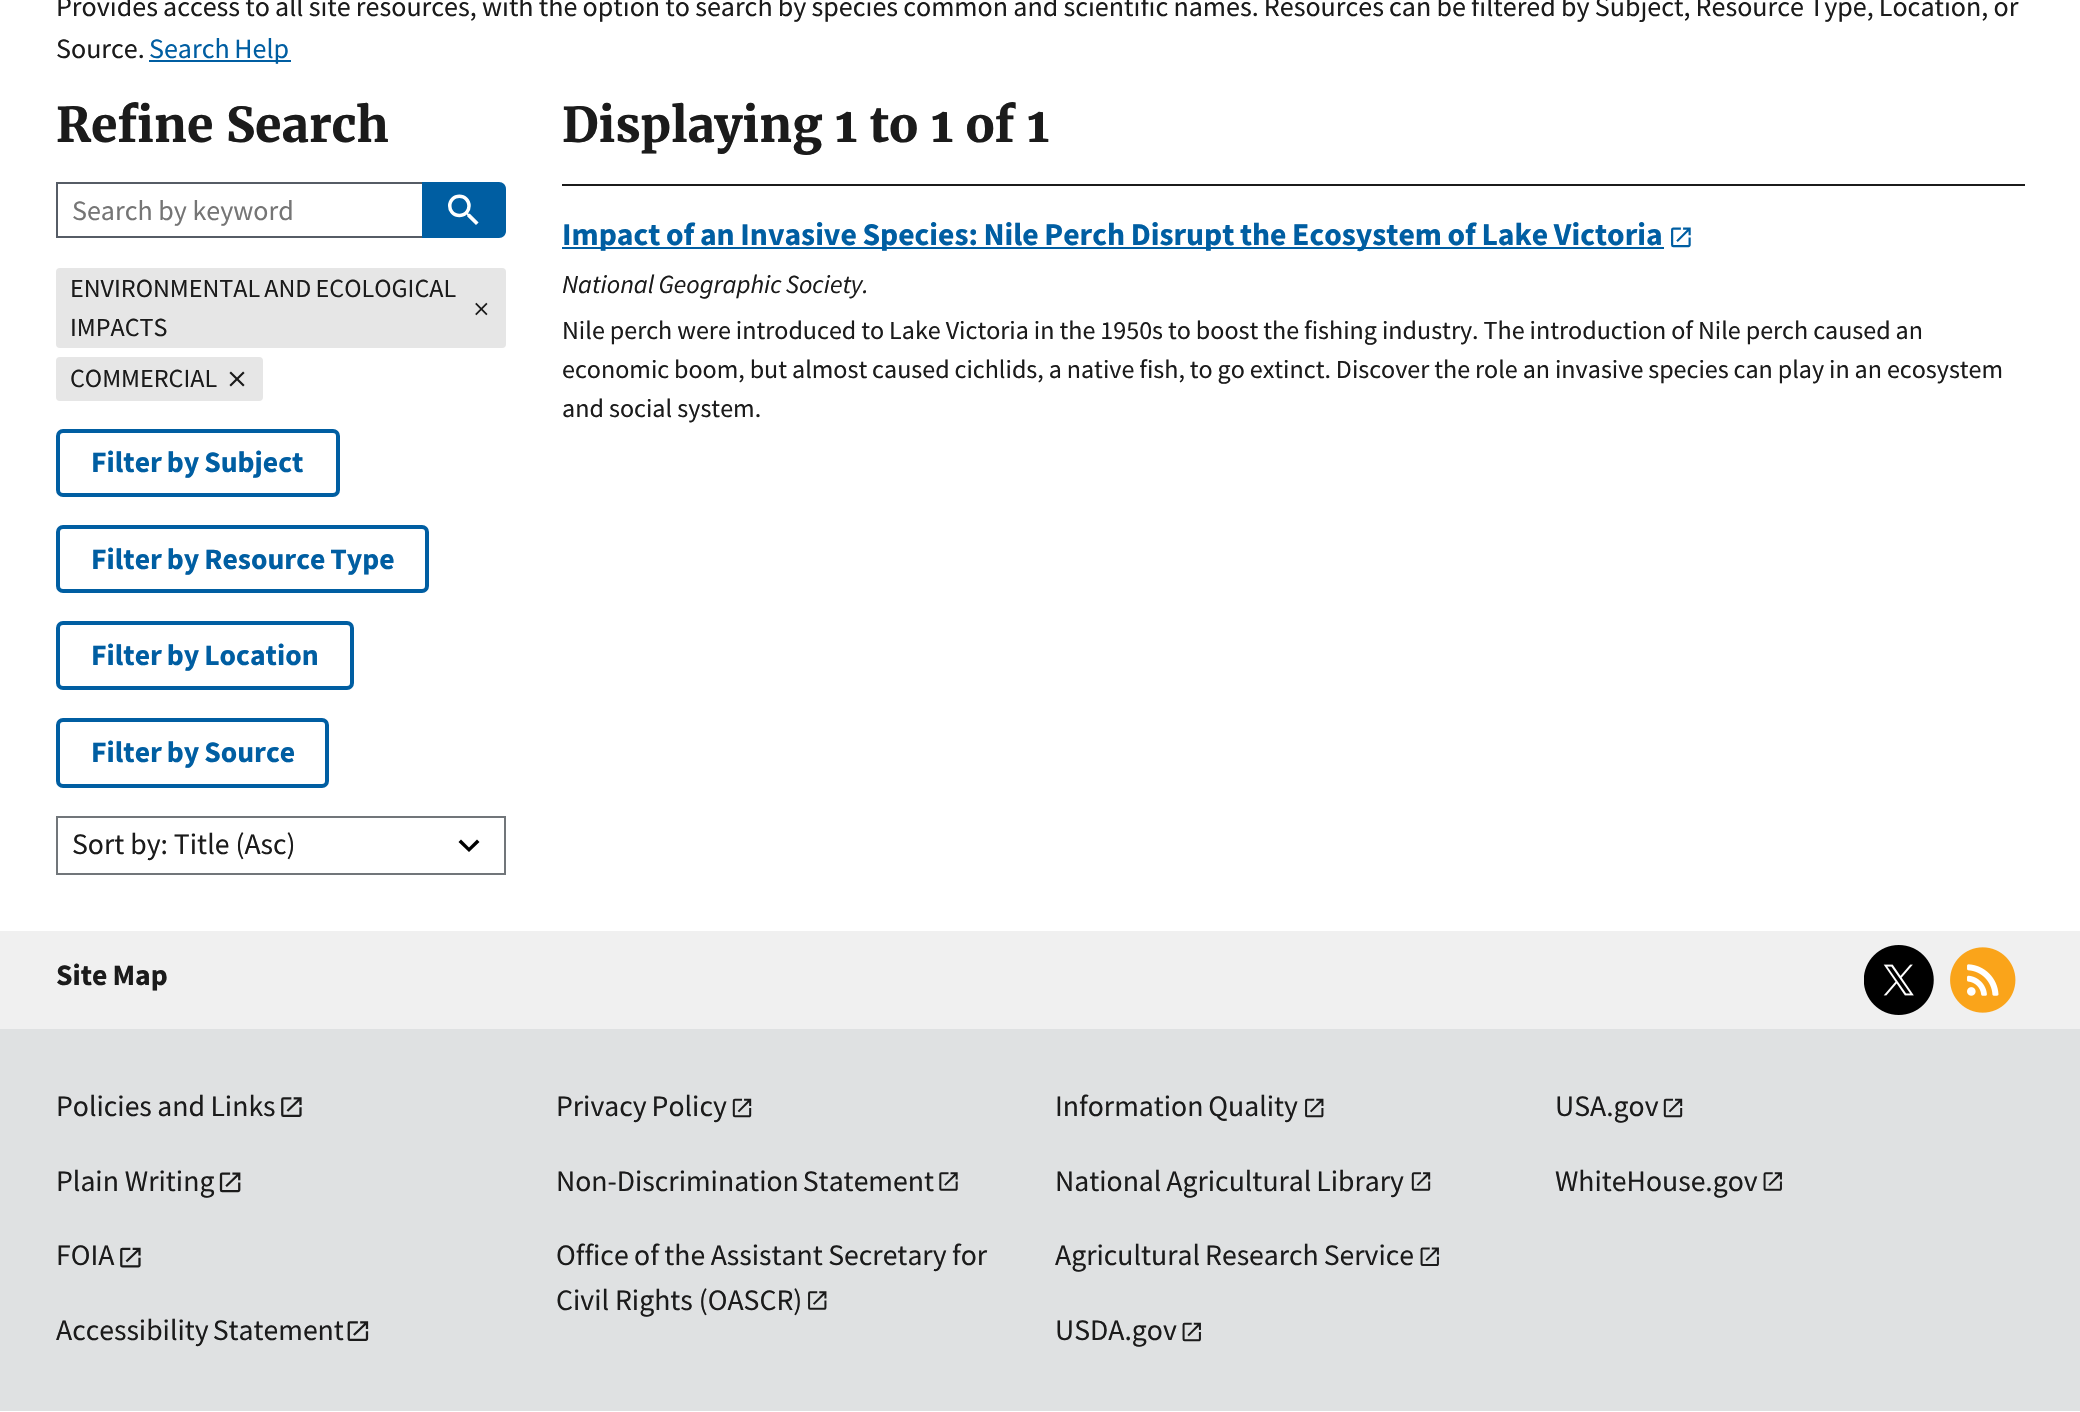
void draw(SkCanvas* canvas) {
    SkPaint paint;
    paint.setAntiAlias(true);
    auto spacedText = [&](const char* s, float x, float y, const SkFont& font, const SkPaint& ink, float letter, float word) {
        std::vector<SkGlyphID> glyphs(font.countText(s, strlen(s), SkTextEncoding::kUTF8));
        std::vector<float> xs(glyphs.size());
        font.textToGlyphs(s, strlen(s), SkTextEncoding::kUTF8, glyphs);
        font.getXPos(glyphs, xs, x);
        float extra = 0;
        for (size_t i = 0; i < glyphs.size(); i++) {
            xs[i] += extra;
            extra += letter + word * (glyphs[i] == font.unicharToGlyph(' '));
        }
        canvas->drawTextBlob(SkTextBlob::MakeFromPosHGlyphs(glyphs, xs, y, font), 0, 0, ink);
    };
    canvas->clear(0xFFFFFFFF);
    SkFont font1(fontMgr->matchFamilyStyle("Source Sans Pro", SkFontStyle::Normal()), 28);
    font1.setSubpixel(true);
    paint.setColor(0xFF1B1B1B);
    spacedText("Provides access to all site resources, with the option to search by species common and scientific names. Resources can be filtered by Subject, Resource Type, Location, or", 56, 16, font1, paint, 0, -0.4f);
    canvas->drawString("Source.", 56, 58, font1, paint);
    paint.setColor(0xFF005EA2);
    canvas->drawRect(SkRect::MakeXYWH(149, 60, 142, 2), paint);
    spacedText("Search Help", 149, 58, font1, paint, 0, -1);
    SkFont font2(fontMgr->matchFamilyStyle("Merriweather", SkFontStyle::Bold()), 47.9f);
    font2.setSubpixel(true);
    paint.setColor(0xFF1B1B1B);
    canvas->drawString("Refine Search", 56, 142, font2, paint);
    paint.setColor(0xFF565C65);
    canvas->drawRect(SkRect::MakeXYWH(56, 182, 366, 2), paint);
    canvas->drawRect(SkRect::MakeXYWH(56, 236, 366, 2), paint);
    canvas->drawRect(SkRect::MakeXYWH(56, 182, 2, 56), paint);
    paint.setColor(0xFF757575);
    canvas->drawString("Search by keyword", 72, 220, font1, paint);
    paint.setColor(0xFF005EA2);
    canvas->drawPath(SkPathBuilder().moveTo(422, 182).lineTo(499, 182).cubicTo(503, 182, 506, 185, 506, 189).lineTo(506, 231).cubicTo(506, 235, 503, 238, 499, 238).lineTo(422, 238).close().detach(), paint);
    canvas->drawImageRect(SkImages::DeferredFromEncodedData(SkData::MakeFromFileName("img1.png")), SkRect::MakeXYWH(448, 194, 31, 31), SkSamplingOptions());
    paint.setColor(0xFFE6E6E6);
    canvas->drawRoundRect(SkRect::MakeXYWH(56, 268, 450, 80), 4, 4, paint);
    SkFont font3(fontMgr->matchFamilyStyle("Source Sans Pro", SkFontStyle::Normal()), 26.05f);
    font3.setSubpixel(true);
    paint.setColor(0xFF1B1B1B);
    spacedText("ENVIRONMENTAL AND ECOLOGICAL", 70, 297, font3, paint, 0, -1);
    canvas->drawString("IMPACTS", 70, 336, font3, paint);
    canvas->drawImageRect(SkImages::DeferredFromEncodedData(SkData::MakeFromFileName("img2.png")), SkRect::MakeXYWH(475, 302, 13, 14), SkSamplingOptions());
    paint.setColor(0xFFE6E6E6);
    canvas->drawRoundRect(SkRect::MakeXYWH(56, 357, 207, 44), 4, 4, paint);
    paint.setColor(0xFF1B1B1B);
    canvas->drawString("COMMERCIAL", 70, 387, font3, paint);
    canvas->drawImageRect(SkImages::DeferredFromEncodedData(SkData::MakeFromFileName("img3.png")), SkRect::MakeXYWH(229, 371, 16, 16), SkSamplingOptions());
    paint.setStyle(SkPaint::kStroke_Style);
    paint.setStrokeWidth(4);
    paint.setColor(0xFF005EA2);
    canvas->drawRoundRect(SkRect::MakeXYWH(58, 431, 280, 64), 5, 5, paint);
    SkFont font4(fontMgr->matchFamilyStyle("Source Sans Pro", SkFontStyle::Bold()), 29.7f);
    font4.setSubpixel(true);
    paint.setStyle(SkPaint::kFill_Style);
    spacedText("Filter by Subject", 91, 472, font4, paint, 0, -1);
    paint.setStyle(SkPaint::kStroke_Style);
    canvas->drawRoundRect(SkRect::MakeXYWH(58, 527, 369, 64), 5, 5, paint);
    paint.setStyle(SkPaint::kFill_Style);
    spacedText("Filter by Resource Type", 91, 569, font4, paint, 0, -1);
    paint.setStyle(SkPaint::kStroke_Style);
    canvas->drawRoundRect(SkRect::MakeXYWH(58, 623, 294, 65), 5, 5, paint);
    paint.setStyle(SkPaint::kFill_Style);
    spacedText("Filter by Location", 91, 665, font4, paint, 0, -1);
    paint.setStyle(SkPaint::kStroke_Style);
    canvas->drawRoundRect(SkRect::MakeXYWH(58, 720, 269, 66), 5, 5, paint);
    paint.setStyle(SkPaint::kFill_Style);
    spacedText("Filter by Source", 91, 762, font4, paint, 0, -1);
    paint.setStyle(SkPaint::kStroke_Style);
    paint.setStrokeWidth(2);
    paint.setColor(0xFF71767A);
    canvas->drawRect(SkRect::MakeXYWH(57, 817, 448, 57), paint);
    SkFont font5(fontMgr->matchFamilyStyle("Source Sans Pro", SkFontStyle::Normal()), 29.7f);
    font5.setSubpixel(true);
    paint.setStyle(SkPaint::kFill_Style);
    paint.setColor(0xFF1B1B1B);
    canvas->drawString("Sort by: Title (Asc)", 72, 854, font5, paint);
    paint.setColor(0xFF000000);
    canvas->drawPath(SkPathBuilder().moveTo(477, 839.5f).lineTo(469, 847.5f).lineTo(461, 839.5f).lineTo(458.5f, 842).lineTo(469, 852).lineTo(479.5f, 842).close().detach(), paint);
    paint.setColor(0xFF1B1B1B);
    canvas->drawString("Displaying 1 to 1 of 1", 562, 142, font2, paint);
    canvas->drawRect(SkRect::MakeXYWH(562, 184, 1463, 2), paint);
    paint.setColor(0xFF005EA2);
    canvas->drawRect(SkRect::MakeXYWH(562, 247, 1102, 2), paint);
    SkFont font6(fontMgr->matchFamilyStyle("Source Sans Pro", SkFontStyle::Bold()), 31.65f);
    font6.setSubpixel(true);
    spacedText("Impact of an Invasive Species: Nile Perch Disrupt the Ecosystem of Lake Victoria", 562, 245, font6, paint, 0, -0.75f);
    canvas->drawImageRect(SkImages::DeferredFromEncodedData(SkData::MakeFromFileName("img4.png")), SkRect::MakeXYWH(1671, 227, 20, 21), SkSamplingOptions());
    SkFont font7(fontMgr->matchFamilyStyle("Source Sans Pro", SkFontStyle::Italic()), 26.05f);
    font7.setSubpixel(true);
    paint.setColor(0xFF1B1B1B);
    spacedText("National Geographic Society.", 562, 293, font7, paint, 0, -1);
    spacedText("Nile perch were introduced to Lake Victoria in the 1950s to boost the fishing industry. The introduction of Nile perch caused an", 562, 339, font3, paint, 0, -0.25f);
    spacedText("economic boom, but almost caused cichlids, a native fish, to go extinct. Discover the role an invasive species can play in an ecosystem", 562, 378, font3, paint, 0, -0.3f);
    canvas->drawString("and social system.", 562, 417, font3, paint);
    paint.setColor(0xFFF0F0F0);
    canvas->drawRect(SkRect::MakeXYWH(0, 931, 2080, 98), paint);
    paint.setColor(0xFF1B1B1B);
    spacedText("Site Map", 56, 985, font4, paint, 0, -1);
    canvas->drawImageRect(SkImages::DeferredFromEncodedData(SkData::MakeFromFileName("img5.png")), SkRect::MakeXYWH(1864, 945, 70, 70), SkSamplingOptions());
    canvas->drawImageRect(SkImages::DeferredFromEncodedData(SkData::MakeFromFileName("img6.png")), SkRect::MakeXYWH(1950, 947, 66, 66), SkSamplingOptions());
    paint.setColor(0xFFDFE1E2);
    canvas->drawRect(SkRect::MakeXYWH(0, 1029, 2080, 382), paint);
    paint.setColor(0xFF1B1B1B);
    spacedText("Policies and Links", 56, 1116, font5, paint, 0, -0.5f);
    canvas->drawImageRect(SkImages::DeferredFromEncodedData(SkData::MakeFromFileName("img7.png")), SkRect::MakeXYWH(281, 1097, 21, 20), SkSamplingOptions());
    spacedText("Privacy Policy", 556, 1116, font5, paint, 0, -1);
    canvas->drawImageRect(SkImages::DeferredFromEncodedData(SkData::MakeFromFileName("img8.png")), SkRect::MakeXYWH(732, 1098, 20, 20), SkSamplingOptions());
    spacedText("Information Quality", 1055, 1116, font5, paint, 0, -1);
    canvas->drawImageRect(SkImages::DeferredFromEncodedData(SkData::MakeFromFileName("img9.png")), SkRect::MakeXYWH(1305, 1098, 19, 20), SkSamplingOptions());
    canvas->drawString("USA.gov", 1555, 1116, font5, paint);
    canvas->drawImageRect(SkImages::DeferredFromEncodedData(SkData::MakeFromFileName("img10.png")), SkRect::MakeXYWH(1663, 1098, 20, 20), SkSamplingOptions());
    canvas->drawString("Plain Writing", 56, 1191, font5, paint);
    canvas->drawImageRect(SkImages::DeferredFromEncodedData(SkData::MakeFromFileName("img11.png")), SkRect::MakeXYWH(219, 1172, 22, 21), SkSamplingOptions());
    spacedText("Non-Discrimination Statement", 556, 1191, font5, paint, 0, -2);
    canvas->drawImageRect(SkImages::DeferredFromEncodedData(SkData::MakeFromFileName("img12.png")), SkRect::MakeXYWH(939, 1172, 19, 19), SkSamplingOptions());
    spacedText("National Agricultural Library", 1055, 1191, font5, paint, 0, -1);
    canvas->drawImageRect(SkImages::DeferredFromEncodedData(SkData::MakeFromFileName("img13.png")), SkRect::MakeXYWH(1411, 1172, 20, 19), SkSamplingOptions());
    canvas->drawString("WhiteHouse.gov", 1555, 1191, font5, paint);
    canvas->drawImageRect(SkImages::DeferredFromEncodedData(SkData::MakeFromFileName("img14.png")), SkRect::MakeXYWH(1763, 1172, 19, 19), SkSamplingOptions());
    canvas->drawString("FOIA", 56, 1265, font5, paint);
    canvas->drawImageRect(SkImages::DeferredFromEncodedData(SkData::MakeFromFileName("img15.png")), SkRect::MakeXYWH(120, 1247, 21, 21), SkSamplingOptions());
    spacedText("Office of the Assistant Secretary for", 556, 1265, font5, paint, 0, -0.5f);
    canvas->drawString("Civil Rights (OASCR)", 556, 1310, font5, paint);
    canvas->drawImageRect(SkImages::DeferredFromEncodedData(SkData::MakeFromFileName("img16.png")), SkRect::MakeXYWH(808, 1291, 19, 19), SkSamplingOptions());
    spacedText("Agricultural Research Service", 1055, 1265, font5, paint, 0, -1);
    canvas->drawImageRect(SkImages::DeferredFromEncodedData(SkData::MakeFromFileName("img17.png")), SkRect::MakeXYWH(1420, 1247, 19, 19), SkSamplingOptions());
    spacedText("Accessibility Statement", 56, 1340, font5, paint, 0, -2);
    canvas->drawImageRect(SkImages::DeferredFromEncodedData(SkData::MakeFromFileName("img18.png")), SkRect::MakeXYWH(347, 1321, 22, 20), SkSamplingOptions());
    canvas->drawString("USDA.gov", 1055, 1340, font5, paint);
    canvas->drawImageRect(SkImages::DeferredFromEncodedData(SkData::MakeFromFileName("img19.png")), SkRect::MakeXYWH(1182, 1322, 19, 20), SkSamplingOptions());
}
